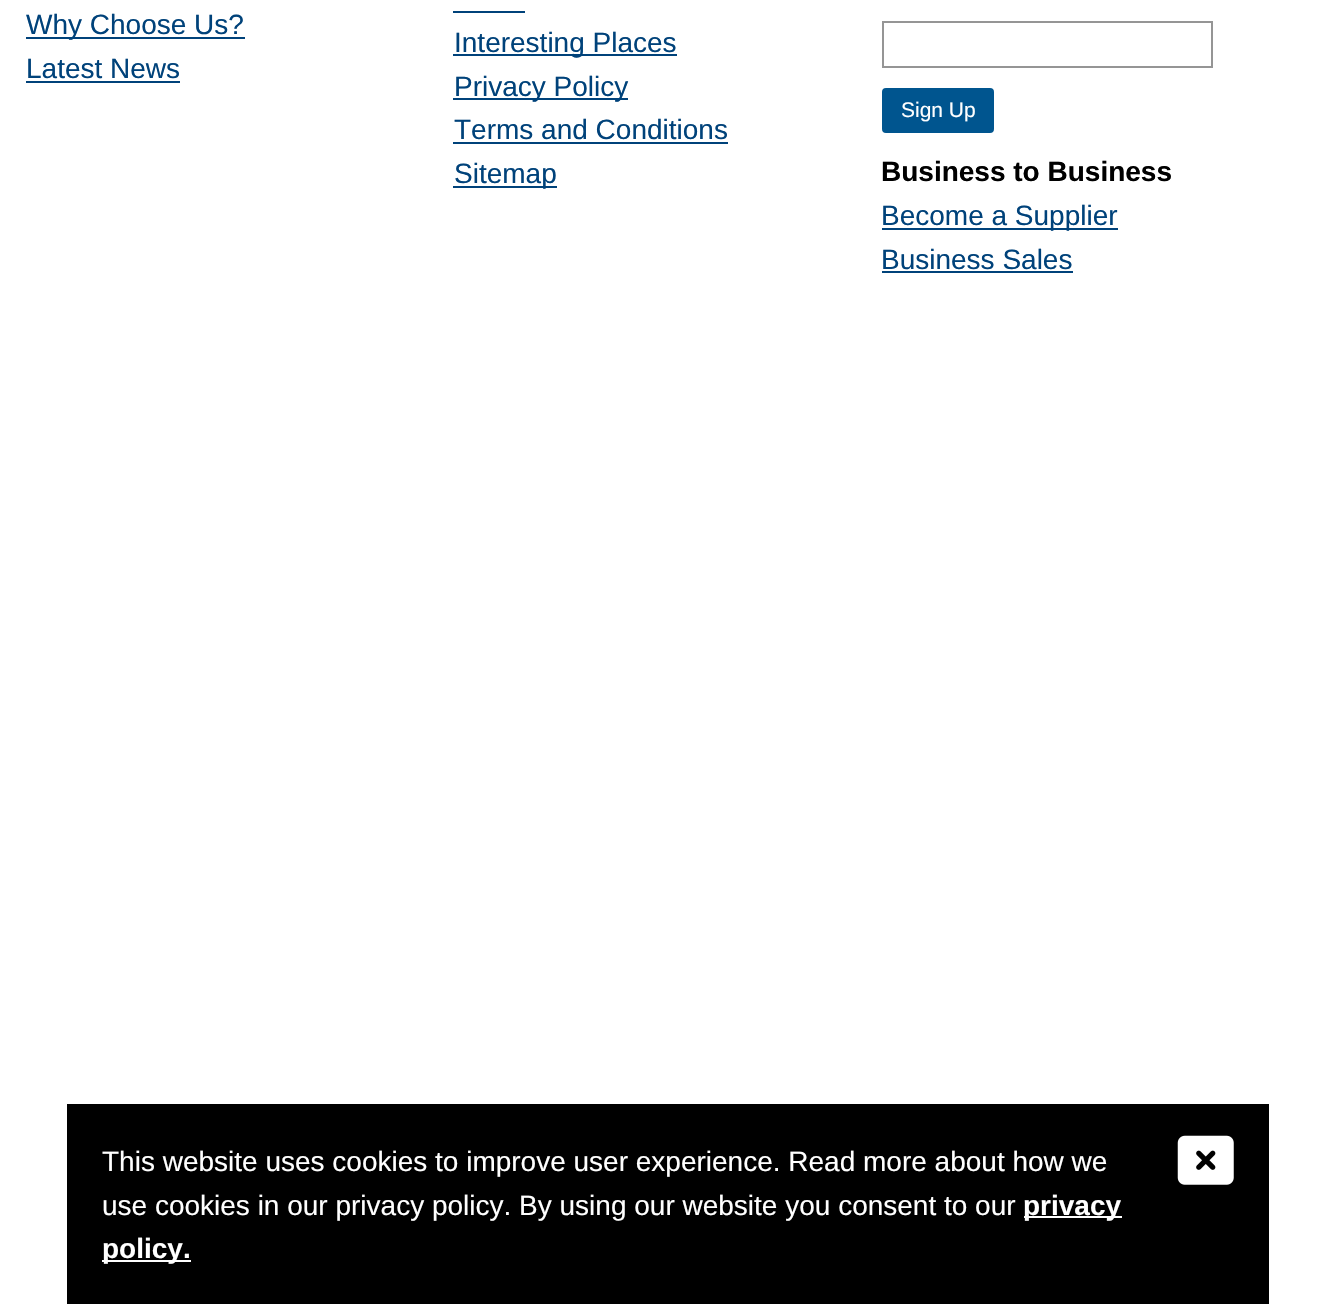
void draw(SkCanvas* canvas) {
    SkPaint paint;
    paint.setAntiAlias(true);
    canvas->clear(0xFFFFFFFF);
    paint.setColor(0xFF00427A);
    canvas->drawRect(SkRect::MakeXYWH(26, 37, 219, 2), paint);
    SkFont font1(fontMgr->matchFamilyStyle("Liberation Sans", SkFontStyle::Normal()), 28);
    font1.setSubpixel(true);
    canvas->drawString("Why Choose Us?", 26, 34, font1, paint);
    canvas->drawString("Latest News", 26, 78, font1, paint);
    canvas->drawRect(SkRect::MakeXYWH(26, 81, 154, 2), paint);
    canvas->drawRect(SkRect::MakeXYWH(453, 11, 72, 2), paint);
    canvas->drawRect(SkRect::MakeXYWH(453, 54, 224, 2), paint);
    canvas->drawString("Interesting Places", 454, 52, font1, paint);
    canvas->drawRect(SkRect::MakeXYWH(453, 98, 175, 2), paint);
    canvas->drawString("Privacy Policy", 454, 96, font1, paint);
    canvas->drawString("Terms and Conditions", 454, 139, font1, paint);
    canvas->drawRect(SkRect::MakeXYWH(453, 142, 275, 2), paint);
    canvas->drawRect(SkRect::MakeXYWH(453, 186, 104, 2), paint);
    canvas->drawString("Sitemap", 454, 183, font1, paint);
    paint.setStyle(SkPaint::kStroke_Style);
    paint.setStrokeWidth(2);
    paint.setColor(0xFF959595);
    canvas->drawRect(SkRect::MakeXYWH(883, 22, 329, 45), paint);
    paint.setStyle(SkPaint::kFill_Style);
    paint.setColor(0xFF00558F);
    canvas->drawRoundRect(SkRect::MakeXYWH(883, 89, 110, 43), 3, 3, paint);
    paint.setStyle(SkPaint::kStroke_Style);
    canvas->drawRoundRect(SkRect::MakeXYWH(883, 89, 110, 43), 3, 3, paint);
    SkFont font2(fontMgr->matchFamilyStyle("Liberation Sans", SkFontStyle::Normal()), 21);
    font2.setSubpixel(true);
    paint.setStyle(SkPaint::kFill_Style);
    paint.setColor(0xFFFFFFFF);
    canvas->drawString("Sign Up", 901, 117, font2, paint);
    SkFont font3(fontMgr->matchFamilyStyle("Liberation Sans", SkFontStyle::Bold()), 28);
    font3.setSubpixel(true);
    paint.setColor(0xFF000000);
    canvas->drawString("Business to Business", 881, 181, font3, paint);
    paint.setColor(0xFF00427A);
    canvas->drawRect(SkRect::MakeXYWH(882, 228, 236, 2), paint);
    canvas->drawString("Become a Supplier", 881, 225, font1, paint);
    canvas->drawString("Business Sales", 881, 269, font1, paint);
    canvas->drawRect(SkRect::MakeXYWH(882, 271, 191, 2), paint);
    paint.setColor(0xFF000000);
    canvas->drawRect(SkRect::MakeXYWH(67, 1104, 1202, 200), paint);
    paint.setColor(0xFFFFFFFF);
    canvas->drawString("This website uses cookies to improve user experience. Read more about how we", 102, 1171, font1, paint);
    canvas->drawString("use cookies in our privacy policy. By using our website you consent to our", 102, 1215, font1, paint);
    canvas->drawRect(SkRect::MakeXYWH(1024, 1216, 98, 2), paint);
    canvas->drawString("privacy", 1023, 1215, font3, paint);
    canvas->drawRect(SkRect::MakeXYWH(102, 1260, 89, 2), paint);
    canvas->drawString("policy.", 102, 1258, font3, paint);
    canvas->drawImageRect(SkImages::DeferredFromEncodedData(SkData::MakeFromFileName("img1.png")), SkRect::MakeXYWH(1177, 1135, 57, 50), SkSamplingOptions());
}
